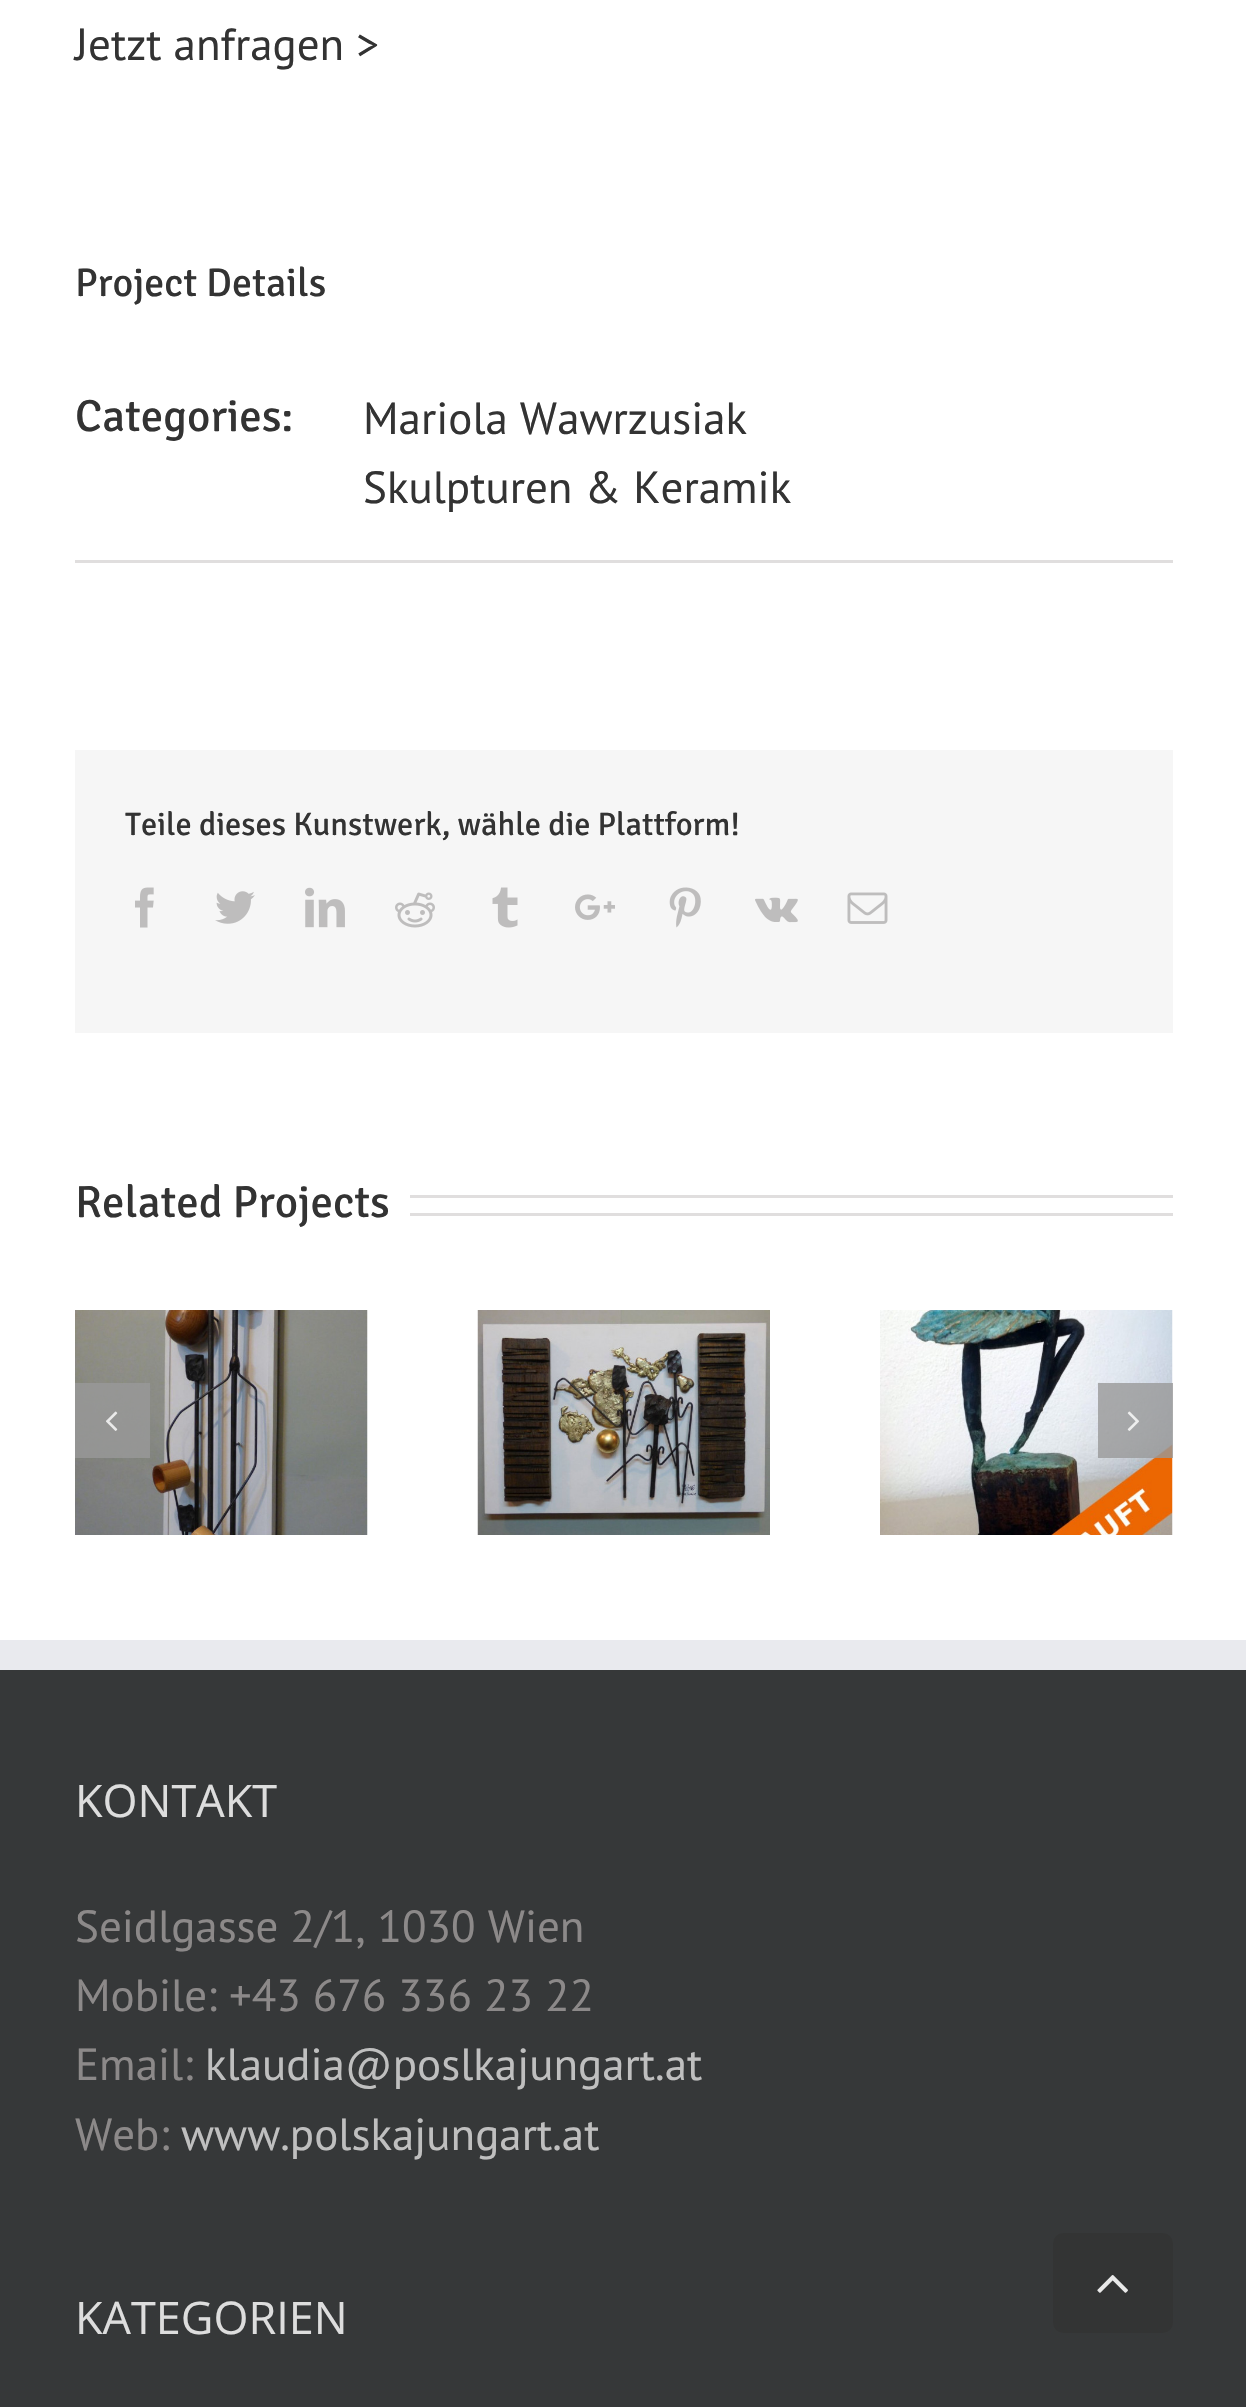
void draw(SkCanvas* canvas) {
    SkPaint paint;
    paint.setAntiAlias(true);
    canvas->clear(0xFFFFFFFF);
    SkFont font1(fontMgr->matchFamilyStyle("PT Sans", SkFontStyle::Normal()), 45);
    font1.setSubpixel(true);
    paint.setColor(0xFF333333);
    canvas->drawString("Jetzt anfragen >", 75, 60, font1, paint);
    SkFont font2(fontMgr->matchFamilyStyle("Signika", SkFontStyle(300, SkFontStyle::kNormal_Width, SkFontStyle::kUpright_Slant)), 40);
    font2.setSubpixel(true);
    canvas->drawString("Project Details", 75, 296, font2, paint);
    paint.setColor(0xFFE0DEDE);
    canvas->drawRect(SkRect::MakeXYWH(75, 560, 1098, 3), paint);
    SkFont font3(fontMgr->matchFamilyStyle("Signika", SkFontStyle(300, SkFontStyle::kNormal_Width, SkFontStyle::kUpright_Slant)), 45);
    font3.setSubpixel(true);
    paint.setColor(0xFF333333);
    canvas->drawString("Categories:", 75, 431, font3, paint);
    canvas->drawString("Mariola Wawrzusiak", 363, 434, font1, paint);
    canvas->drawString("Skulpturen & Keramik", 363, 503, font1, paint);
    paint.setColor(0xFFF6F6F6);
    canvas->drawRect(SkRect::MakeXYWH(75, 750, 1098, 283), paint);
    SkFont font4(fontMgr->matchFamilyStyle("Signika", SkFontStyle(300, SkFontStyle::kNormal_Width, SkFontStyle::kUpright_Slant)), 32.5f);
    font4.setSubpixel(true);
    paint.setColor(0xFF333333);
    canvas->drawString("Teile dieses Kunstwerk, wähle die Plattform!", 125, 835, font4, paint);
    canvas->drawImageRect(SkImages::DeferredFromEncodedData(SkData::MakeFromFileName("img1.png")), SkRect::MakeXYWH(135, 887, 19, 41), SkSamplingOptions());
    canvas->drawImageRect(SkImages::DeferredFromEncodedData(SkData::MakeFromFileName("img2.png")), SkRect::MakeXYWH(215, 891, 40, 33), SkSamplingOptions());
    canvas->drawImageRect(SkImages::DeferredFromEncodedData(SkData::MakeFromFileName("img3.png")), SkRect::MakeXYWH(305, 887, 40, 41), SkSamplingOptions());
    canvas->drawImageRect(SkImages::DeferredFromEncodedData(SkData::MakeFromFileName("img4.png")), SkRect::MakeXYWH(395, 892, 40, 36), SkSamplingOptions());
    canvas->drawImageRect(SkImages::DeferredFromEncodedData(SkData::MakeFromFileName("img5.png")), SkRect::MakeXYWH(492, 887, 26, 41), SkSamplingOptions());
    canvas->drawImageRect(SkImages::DeferredFromEncodedData(SkData::MakeFromFileName("img6.png")), SkRect::MakeXYWH(575, 894, 40, 26), SkSamplingOptions());
    canvas->drawImageRect(SkImages::DeferredFromEncodedData(SkData::MakeFromFileName("img7.png")), SkRect::MakeXYWH(669, 887, 32, 41), SkSamplingOptions());
    canvas->drawImageRect(SkImages::DeferredFromEncodedData(SkData::MakeFromFileName("img8.png")), SkRect::MakeXYWH(755, 897, 43, 26), SkSamplingOptions());
    canvas->drawImageRect(SkImages::DeferredFromEncodedData(SkData::MakeFromFileName("img9.png")), SkRect::MakeXYWH(847, 892, 41, 32), SkSamplingOptions());
    canvas->drawString("Related Projects", 75, 1217, font3, paint);
    paint.setColor(0xFFE0DEDE);
    canvas->drawRect(SkRect::MakeXYWH(410, 1195, 763, 3), paint);
    canvas->drawRect(SkRect::MakeXYWH(410, 1213, 763, 3), paint);
    canvas->drawImageRect(SkImages::DeferredFromEncodedData(SkData::MakeFromFileName("img10.png")), SkRect::MakeXYWH(75, 1310, 293, 225), SkSamplingOptions());
    canvas->drawImageRect(SkImages::DeferredFromEncodedData(SkData::MakeFromFileName("img11.png")), SkRect::MakeXYWH(477, 1310, 293, 225), SkSamplingOptions());
    canvas->drawImageRect(SkImages::DeferredFromEncodedData(SkData::MakeFromFileName("img12.png")), SkRect::MakeXYWH(880, 1310, 293, 225), SkSamplingOptions());
    paint.setColor(0xCC999999);
    canvas->drawRect(SkRect::MakeXYWH(75, 1383, 75, 75), paint);
    canvas->drawImageRect(SkImages::DeferredFromEncodedData(SkData::MakeFromFileName("img13.png")), SkRect::MakeXYWH(106, 1411, 12, 20), SkSamplingOptions());
    canvas->drawRect(SkRect::MakeXYWH(1098, 1383, 75, 75), paint);
    canvas->drawImageRect(SkImages::DeferredFromEncodedData(SkData::MakeFromFileName("img14.png")), SkRect::MakeXYWH(1127, 1411, 12, 20), SkSamplingOptions());
    paint.setColor(0xFF363839);
    canvas->drawRect(SkRect::MakeXYWH(0, 1670, 1246, 737), paint);
    paint.setColor(0xFFE9EAEE);
    canvas->drawRect(SkRect::MakeXYWH(0, 1640, 1246, 30), paint);
    SkFont font5(fontMgr->matchFamilyStyle("Open Sans", SkFontStyle::Normal()), 45);
    font5.setSubpixel(true);
    paint.setColor(0xFFDDDDDD);
    canvas->drawString("KONTAKT", 75, 1817, font5, paint);
    paint.setColor(0xFF8C8989);
    canvas->drawString("Seidlgasse 2/1, 1030 Wien", 75, 1942, font1, paint);
    canvas->drawString("Mobile: +43 676 336 23 22", 75, 2011, font1, paint);
    canvas->drawString("Email:", 75, 2080, font1, paint);
    paint.setColor(0xFFBFBFBF);
    canvas->drawString("klaudia@poslkajungart.at", 205, 2080, font1, paint);
    paint.setColor(0xFF8C8989);
    canvas->drawString("Web:", 75, 2150, font1, paint);
    paint.setColor(0xFFBFBFBF);
    canvas->drawString("www.polskajungart.at", 181, 2150, font1, paint);
    paint.setColor(0xFFDDDDDD);
    canvas->drawString("KATEGORIEN", 75, 2334, font5, paint);
    paint.setColor(0xFF333434);
    canvas->drawRoundRect(SkRect::MakeXYWH(1053, 2233, 120, 100), 10, 10, paint);
    canvas->drawImageRect(SkImages::DeferredFromEncodedData(SkData::MakeFromFileName("img15.png")), SkRect::MakeXYWH(1097, 2275, 31, 18), SkSamplingOptions());
}
